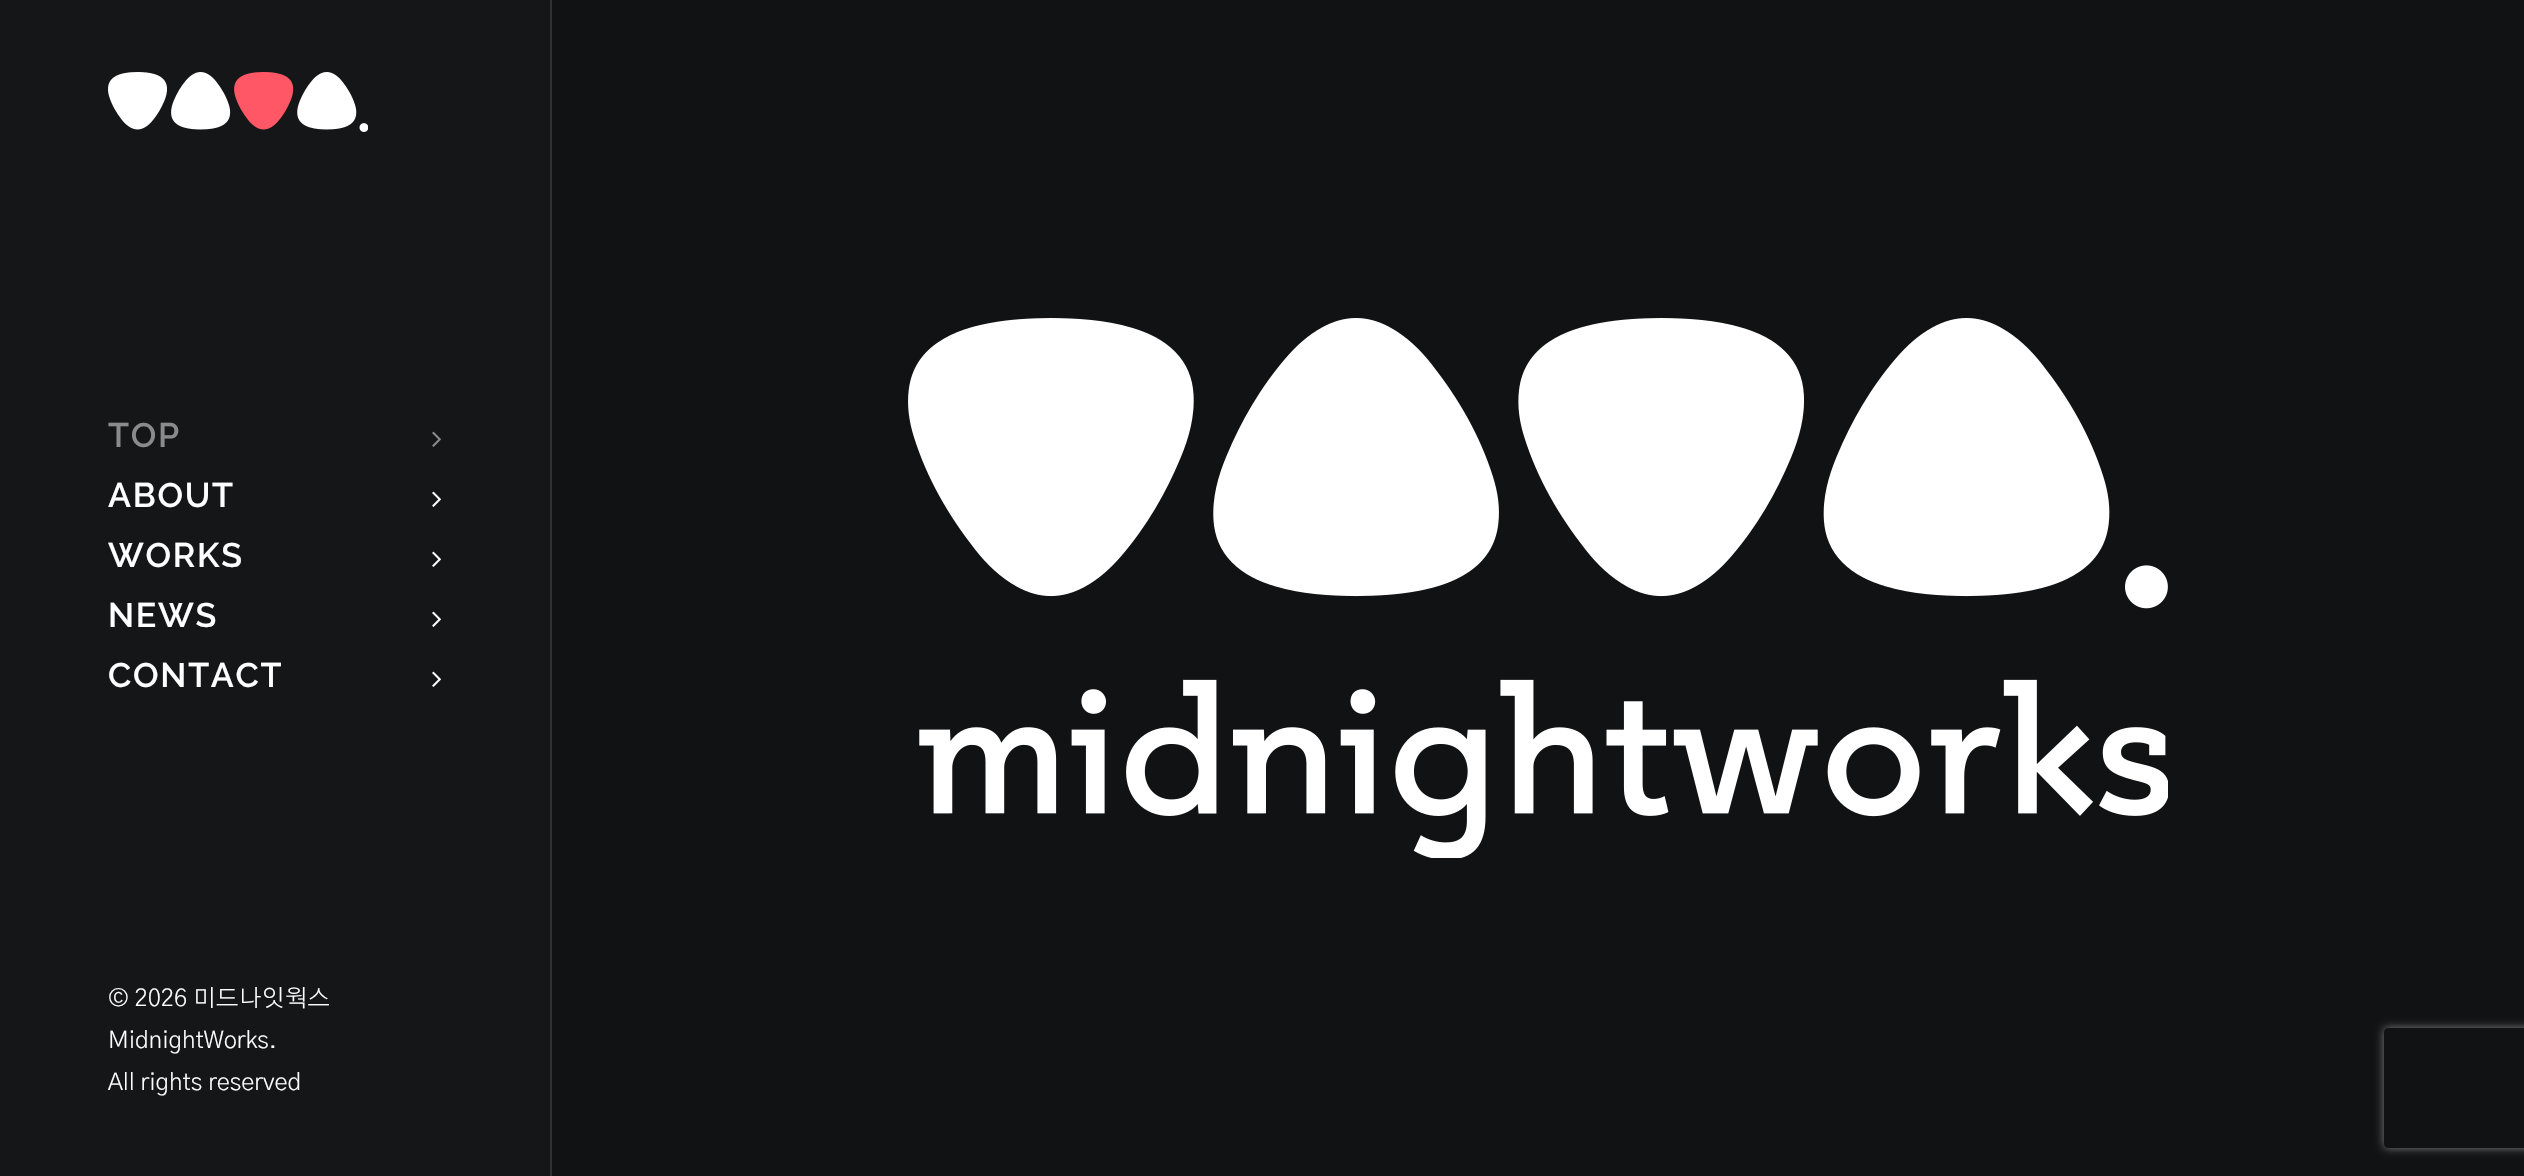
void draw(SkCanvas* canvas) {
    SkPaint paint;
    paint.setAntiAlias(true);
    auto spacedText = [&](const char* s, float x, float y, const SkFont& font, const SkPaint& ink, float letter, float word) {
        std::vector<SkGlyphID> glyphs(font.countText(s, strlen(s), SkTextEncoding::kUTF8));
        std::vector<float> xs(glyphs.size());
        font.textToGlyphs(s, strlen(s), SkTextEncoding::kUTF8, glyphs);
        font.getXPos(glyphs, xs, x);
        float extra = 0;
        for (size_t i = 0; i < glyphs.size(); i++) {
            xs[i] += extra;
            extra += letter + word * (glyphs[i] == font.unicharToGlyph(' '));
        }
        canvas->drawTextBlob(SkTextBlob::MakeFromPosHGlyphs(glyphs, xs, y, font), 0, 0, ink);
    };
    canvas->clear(0xFF101213);
    paint.setColor(0xFF141618);
    canvas->drawRect(SkRect::MakeXYWH(0, 0, 550, 1176), paint);
    paint.setColor(0xFF303133);
    canvas->drawRect(SkRect::MakeXYWH(550, 0, 2, 1176), paint);
    canvas->drawImageRect(SkImages::DeferredFromEncodedData(SkData::MakeFromFileName("img1.png")), SkRect::MakeXYWH(108, 72, 260, 60), SkSamplingOptions());
    SkFont font1(fontMgr->matchFamilyStyle("Raleway", SkFontStyle(600, SkFontStyle::kNormal_Width, SkFontStyle::kUpright_Slant)), 34);
    font1.setSubpixel(true);
    paint.setColor(0xFF8A8B8C);
    spacedText("TOP", 108, 447, font1, paint, 1.75f, 0);
    canvas->drawImageRect(SkImages::DeferredFromEncodedData(SkData::MakeFromFileName("img2.png")), SkRect::MakeXYWH(432, 431, 9, 16), SkSamplingOptions());
    paint.setColor(0xFFFFFFFF);
    spacedText("ABOUT", 108, 507, font1, paint, 1.75f, 0);
    canvas->drawImageRect(SkImages::DeferredFromEncodedData(SkData::MakeFromFileName("img3.png")), SkRect::MakeXYWH(432, 491, 9, 16), SkSamplingOptions());
    spacedText("WORKS", 108, 567, font1, paint, 1.75f, 0);
    canvas->drawImageRect(SkImages::DeferredFromEncodedData(SkData::MakeFromFileName("img3.png")), SkRect::MakeXYWH(432, 551, 9, 16), SkSamplingOptions());
    spacedText("NEWS", 108, 627, font1, paint, 1.75f, 0);
    canvas->drawImageRect(SkImages::DeferredFromEncodedData(SkData::MakeFromFileName("img3.png")), SkRect::MakeXYWH(432, 611, 9, 16), SkSamplingOptions());
    spacedText("CONTACT", 108, 687, font1, paint, 1.75f, 0);
    canvas->drawImageRect(SkImages::DeferredFromEncodedData(SkData::MakeFromFileName("img3.png")), SkRect::MakeXYWH(432, 671, 9, 16), SkSamplingOptions());
    SkFont font2(fontMgr->matchFamilyStyle("Gothic A1", SkFontStyle(300, SkFontStyle::kNormal_Width, SkFontStyle::kUpright_Slant)), 24);
    font2.setSubpixel(true);
    canvas->drawString("© 2026 미드나잇웍스", 108, 1006, font2, paint);
    canvas->drawString("MidnightWorks.", 108, 1048, font2, paint);
    canvas->drawString("All rights reserved", 108, 1090, font2, paint);
    canvas->drawImageRect(SkImages::DeferredFromEncodedData(SkData::MakeFromFileName("img4.png")), SkRect::MakeXYWH(908, 318, 1260, 540), SkSamplingOptions());
    canvas->save();
    canvas->clipPath(SkPathBuilder(SkPathFillType::kEvenOdd).moveTo(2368, 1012).lineTo(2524, 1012).lineTo(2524, 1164).lineTo(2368, 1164).close().moveTo(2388, 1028).lineTo(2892, 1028).cubicTo(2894, 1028, 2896, 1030, 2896, 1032).lineTo(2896, 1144).cubicTo(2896, 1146, 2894, 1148, 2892, 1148).lineTo(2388, 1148).cubicTo(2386, 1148, 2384, 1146, 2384, 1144).lineTo(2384, 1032).cubicTo(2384, 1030, 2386, 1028, 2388, 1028).close().detach(), true);
    paint.setColor(0xFF808080);
    paint.setMaskFilter(SkMaskFilter::MakeBlur(kNormal_SkBlurStyle, 5));
    canvas->drawRoundRect(SkRect::MakeXYWH(2384, 1028, 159, 120), 4, 4, paint);
    paint.setMaskFilter(nullptr);
    canvas->restore();
}
